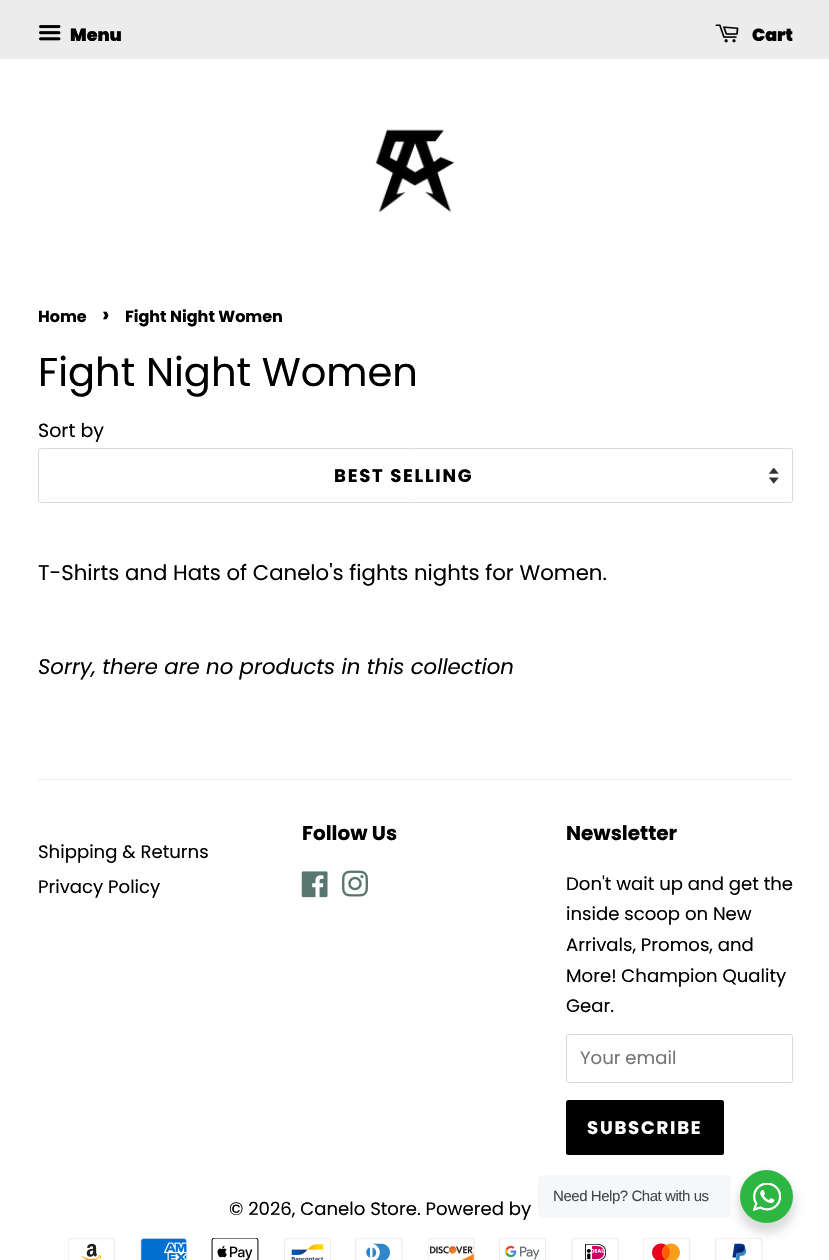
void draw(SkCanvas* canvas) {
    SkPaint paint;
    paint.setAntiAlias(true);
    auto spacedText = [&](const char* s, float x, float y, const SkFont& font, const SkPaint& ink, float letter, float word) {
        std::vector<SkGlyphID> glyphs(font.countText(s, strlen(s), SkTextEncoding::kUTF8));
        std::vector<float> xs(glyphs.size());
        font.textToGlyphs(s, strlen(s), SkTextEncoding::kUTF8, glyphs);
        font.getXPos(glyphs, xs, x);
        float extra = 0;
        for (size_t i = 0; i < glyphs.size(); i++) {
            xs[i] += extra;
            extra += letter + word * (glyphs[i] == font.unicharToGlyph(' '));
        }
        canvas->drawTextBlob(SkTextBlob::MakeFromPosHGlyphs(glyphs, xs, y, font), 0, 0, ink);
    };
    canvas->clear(0xFFFFFFFF);
    paint.setColor(0xFFECECEC);
    canvas->drawRect(SkRect::MakeXYWH(0, 0, 829, 59), paint);
    canvas->drawImageRect(SkImages::DeferredFromEncodedData(SkData::MakeFromFileName("img1.png")), SkRect::MakeXYWH(39, 25, 22, 16), SkSamplingOptions());
    SkFont font1(fontMgr->matchFamilyStyle("Poppins", SkFontStyle(900, SkFontStyle::kNormal_Width, SkFontStyle::kUpright_Slant)), 17.5f);
    font1.setSubpixel(true);
    paint.setColor(0xFF000000);
    canvas->drawString("Menu", 70, 41, font1, paint);
    canvas->drawImageRect(SkImages::DeferredFromEncodedData(SkData::MakeFromFileName("img2.png")), SkRect::MakeXYWH(715, 24, 24, 19), SkSamplingOptions());
    canvas->drawString("Cart", 752, 41, font1, paint);
    canvas->drawImageRect(SkImages::DeferredFromEncodedData(SkData::MakeFromFileName("img3.png")), SkRect::MakeXYWH(375, 129, 80, 84), SkSamplingOptions());
    SkFont font2(fontMgr->matchFamilyStyle("Poppins", SkFontStyle::Bold()), 16);
    font2.setSubpixel(true);
    canvas->drawString("Home", 38, 322, font2, paint);
    SkFont font3(fontMgr->matchFamilyStyle("Poppins", SkFontStyle::Bold()), 22);
    font3.setSubpixel(true);
    canvas->drawString("›", 102, 322, font3, paint);
    canvas->drawString("Fight Night Women", 125, 322, font2, paint);
    SkFont font4(fontMgr->matchFamilyStyle("Poppins", SkFontStyle::Normal()), 40);
    font4.setSubpixel(true);
    canvas->drawString("Fight Night Women", 38, 386, font4, paint);
    SkFont font5(fontMgr->matchFamilyStyle("Poppins", SkFontStyle::Normal()), 19);
    font5.setSubpixel(true);
    canvas->drawString("Sort by", 38, 437, font5, paint);
    canvas->drawImageRect(SkImages::DeferredFromEncodedData(SkData::MakeFromFileName("img4.png")), SkRect::MakeXYWH(769, 468, 10, 16), SkSamplingOptions());
    paint.setStyle(SkPaint::kStroke_Style);
    paint.setStrokeWidth(1);
    paint.setColor(0xFFD9D9D9);
    canvas->drawRoundRect(SkRect::MakeXYWH(38.5f, 448.5f, 754, 54), 2, 2, paint);
    SkFont font6(fontMgr->matchFamilyStyle("Poppins", SkFontStyle::Bold()), 18.1f);
    font6.setSubpixel(true);
    paint.setStyle(SkPaint::kFill_Style);
    paint.setColor(0xFF000000);
    spacedText("BEST SELLING", 334, 482, font6, paint, 1.75f, 0);
    SkFont font7(fontMgr->matchFamilyStyle("Poppins", SkFontStyle::Normal()), 21.25f);
    font7.setSubpixel(true);
    canvas->drawString("T-Shirts and Hats of Canelo's fights nights for Women.", 38, 580, font7, paint);
    SkFont font8(fontMgr->matchFamilyStyle("Poppins", SkFontStyle::Italic()), 21.25f);
    font8.setSubpixel(true);
    canvas->drawString("Sorry, there are no products in this collection", 38, 674, font8, paint);
    paint.setColor(0xFFEBEBEB);
    canvas->drawRect(SkRect::MakeXYWH(38, 779, 755, 1), paint);
    SkFont font9(fontMgr->matchFamilyStyle("Poppins", SkFontStyle::Normal()), 18.1f);
    font9.setSubpixel(true);
    paint.setColor(0xFF000000);
    canvas->drawString("Shipping & Returns", 38, 858, font9, paint);
    canvas->drawString("Privacy Policy", 38, 893, font9, paint);
    SkFont font10(fontMgr->matchFamilyStyle("Poppins", SkFontStyle::Bold()), 20);
    font10.setSubpixel(true);
    canvas->drawString("Follow Us", 302, 840, font10, paint);
    canvas->drawImageRect(SkImages::DeferredFromEncodedData(SkData::MakeFromFileName("img5.png")), SkRect::MakeXYWH(301, 871, 27, 27), SkSamplingOptions());
    canvas->drawImageRect(SkImages::DeferredFromEncodedData(SkData::MakeFromFileName("img6.png")), SkRect::MakeXYWH(342, 870, 26, 27), SkSamplingOptions());
    canvas->drawString("Newsletter", 566, 840, font10, paint);
    canvas->drawString("Don't wait up and get the", 566, 890, font9, paint);
    canvas->drawString("inside scoop on New", 566, 920, font9, paint);
    canvas->drawString("Arrivals, Promos, and", 566, 951, font9, paint);
    canvas->drawString("More! Champion Quality", 566, 982, font9, paint);
    canvas->drawString("Gear.", 566, 1012, font9, paint);
    paint.setStyle(SkPaint::kStroke_Style);
    paint.setColor(0xFFD9D9D9);
    canvas->drawRoundRect(SkRect::MakeXYWH(566.5f, 1034.5f, 226, 48), 2, 2, paint);
    paint.setStyle(SkPaint::kFill_Style);
    paint.setColor(0xFF757575);
    canvas->drawString("Your email", 580, 1064, font9, paint);
    paint.setColor(0xFF000000);
    canvas->drawRoundRect(SkRect::MakeXYWH(566, 1100, 158, 55), 2.5f, 2.5f, paint);
    paint.setColor(0xFFFFFFFF);
    spacedText("SUBSCRIBE", 587, 1134, font6, paint, 1.75f, 0);
    paint.setColor(0xFF000000);
    canvas->drawString("© 2026, Canelo Store. Powered by", 229, 1215, font9, paint);
    canvas->drawImageRect(SkImages::DeferredFromEncodedData(SkData::MakeFromFileName("img7.png")), SkRect::MakeXYWH(68, 1238, 47, 22), SkSamplingOptions());
    canvas->drawImageRect(SkImages::DeferredFromEncodedData(SkData::MakeFromFileName("img8.png")), SkRect::MakeXYWH(140, 1238, 48, 22), SkSamplingOptions());
    canvas->drawImageRect(SkImages::DeferredFromEncodedData(SkData::MakeFromFileName("img9.png")), SkRect::MakeXYWH(211, 1238, 48, 22), SkSamplingOptions());
    canvas->drawImageRect(SkImages::DeferredFromEncodedData(SkData::MakeFromFileName("img10.png")), SkRect::MakeXYWH(284, 1238, 47, 22), SkSamplingOptions());
    canvas->drawImageRect(SkImages::DeferredFromEncodedData(SkData::MakeFromFileName("img11.png")), SkRect::MakeXYWH(355, 1238, 48, 22), SkSamplingOptions());
    canvas->drawImageRect(SkImages::DeferredFromEncodedData(SkData::MakeFromFileName("img12.png")), SkRect::MakeXYWH(428, 1238, 47, 22), SkSamplingOptions());
    canvas->drawImageRect(SkImages::DeferredFromEncodedData(SkData::MakeFromFileName("img13.png")), SkRect::MakeXYWH(499, 1238, 47, 22), SkSamplingOptions());
    canvas->drawImageRect(SkImages::DeferredFromEncodedData(SkData::MakeFromFileName("img14.png")), SkRect::MakeXYWH(571, 1238, 48, 22), SkSamplingOptions());
    canvas->drawImageRect(SkImages::DeferredFromEncodedData(SkData::MakeFromFileName("img15.png")), SkRect::MakeXYWH(643, 1238, 47, 22), SkSamplingOptions());
    canvas->drawImageRect(SkImages::DeferredFromEncodedData(SkData::MakeFromFileName("img16.png")), SkRect::MakeXYWH(715, 1238, 48, 22), SkSamplingOptions());
    paint.setColor(0x24000000);
    paint.setMaskFilter(SkMaskFilter::MakeBlur(kNormal_SkBlurStyle, 5));
    canvas->drawRoundRect(SkRect::MakeXYWH(738, 1175, 57, 58), 28.5f, 28.5f, paint);
    paint.setMaskFilter(nullptr);
    paint.setColor(0xFFF5F7F9);
    canvas->drawRoundRect(SkRect::MakeXYWH(538, 1175, 193, 43), 5, 5, paint);
    SkFont font11(fontMgr->matchFamilyStyle("Liberation Sans", SkFontStyle::Normal()), 15);
    font11.setSubpixel(true);
    paint.setColor(0xFF43474E);
    spacedText("Need Help? Chat with us", 553, 1201, font11, paint, -0.45f, 0);
    paint.setColor(0xFF2DB742);
    canvas->drawCircle(766.5f, 1196.5f, 26.5f, paint);
    canvas->drawImageRect(SkImages::DeferredFromEncodedData(SkData::MakeFromFileName("img17.png")), SkRect::MakeXYWH(753, 1183, 28, 28), SkSamplingOptions());
}
